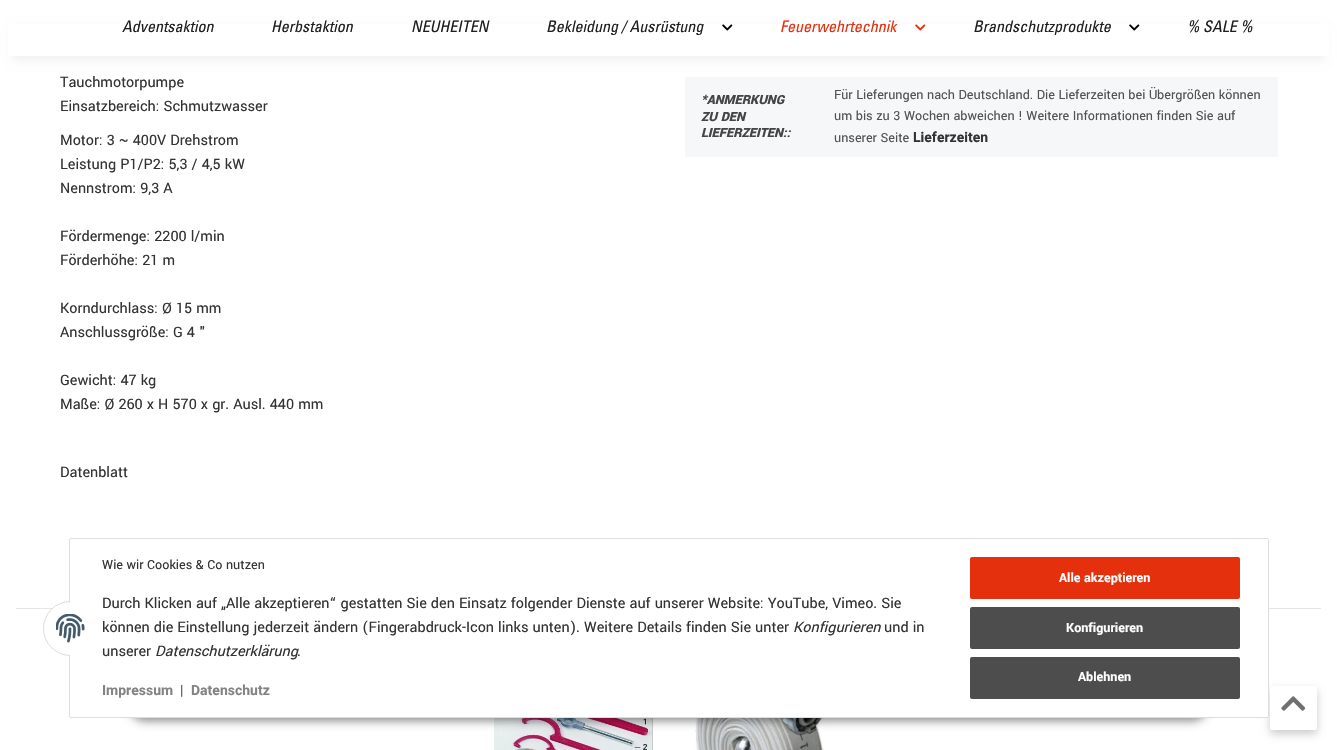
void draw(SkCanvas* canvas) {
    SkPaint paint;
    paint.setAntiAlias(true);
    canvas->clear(0xFFFFFFFF);
    paint.setColor(0x0F000000);
    paint.setMaskFilter(SkMaskFilter::MakeBlur(kNormal_SkBlurStyle, 4.5f));
    canvas->drawRect(SkRect::MakeXYWH(12, 28, 1313, 32), paint);
    paint.setMaskFilter(nullptr);
    paint.setColor(0xFFFFFFFF);
    canvas->drawRect(SkRect::MakeXYWH(8, 24, 1321, 32), paint);
    SkFont font1(fontMgr->matchFamilyStyle("Univers", SkFontStyle::Italic()), 16);
    font1.setSubpixel(true);
    paint.setColor(0xFF1F1F1F);
    canvas->drawString("Adventsaktion", 122, 32, font1, paint);
    canvas->drawString("Herbstaktion", 271, 32, font1, paint);
    canvas->drawString("NEUHEITEN", 411, 32, font1, paint);
    canvas->drawString("Bekleidung / Ausrüstung", 546, 32, font1, paint);
    canvas->drawImageRect(SkImages::DeferredFromEncodedData(SkData::MakeFromFileName("img1.png")), SkRect::MakeXYWH(722, 24, 11, 7), SkSamplingOptions());
    paint.setColor(0xFFE5300E);
    canvas->drawString("Feuerwehrtechnik", 780, 32, font1, paint);
    canvas->drawImageRect(SkImages::DeferredFromEncodedData(SkData::MakeFromFileName("img2.png")), SkRect::MakeXYWH(915, 24, 11, 7), SkSamplingOptions());
    paint.setColor(0xFF1F1F1F);
    canvas->drawString("Brandschutzprodukte", 973, 32, font1, paint);
    canvas->drawImageRect(SkImages::DeferredFromEncodedData(SkData::MakeFromFileName("img1.png")), SkRect::MakeXYWH(1129, 24, 11, 7), SkSamplingOptions());
    canvas->drawString("% SALE %", 1187, 32, font1, paint);
    SkFont font2(fontMgr->matchFamilyStyle("Yantramanav", SkFontStyle::Normal()), 16);
    font2.setSubpixel(true);
    paint.setColor(0xFF333333);
    canvas->drawString("Tauchmotorpumpe", 60, 87, font2, paint);
    canvas->drawString("Einsatzbereich: Schmutzwasser", 60, 111, font2, paint);
    canvas->drawString("Motor: 3 ~ 400V Drehstrom", 60, 145, font2, paint);
    canvas->drawString("Leistung P1/P2: 5,3 / 4,5 kW", 60, 169, font2, paint);
    canvas->drawString("Nennstrom: 9,3 A", 60, 193, font2, paint);
    canvas->drawString("Fördermenge: 2200 l/min", 60, 241, font2, paint);
    canvas->drawString("Förderhöhe: 21 m", 60, 265, font2, paint);
    canvas->drawString("Korndurchlass: Ø 15 mm", 60, 313, font2, paint);
    canvas->drawString("Anschlussgröße: G 4 \"", 60, 337, font2, paint);
    canvas->drawString("Gewicht: 47 kg", 60, 385, font2, paint);
    canvas->drawString("Maße: Ø 260 x H 570 x gr. Ausl. 440 mm", 60, 409, font2, paint);
    canvas->drawString("Datenblatt", 60, 477, font2, paint);
    paint.setColor(0xFFF5F7F8);
    canvas->drawRect(SkRect::MakeXYWH(685, 77, 593, 80), paint);
    SkFont font3(fontMgr->matchFamilyStyle("Yantramanav", SkFontStyle(900, SkFontStyle::kNormal_Width, SkFontStyle::kItalic_Slant)), 14);
    font3.setSubpixel(true);
    paint.setColor(0xFF454545);
    canvas->drawString("*ANMERKUNG", 701, 104, font3, paint);
    canvas->drawString("ZU DEN", 701, 121, font3, paint);
    canvas->drawString("LIEFERZEITEN::", 701, 137, font3, paint);
    SkFont font4(fontMgr->matchFamilyStyle("Yantramanav", SkFontStyle::Normal()), 14);
    font4.setSubpixel(true);
    paint.setColor(0xFF525252);
    canvas->drawString("Für Lieferungen nach Deutschland. Die Lieferzeiten bei Übergrößen können", 834, 99, font4, paint);
    canvas->drawString("um bis zu 3 Wochen abweichen ! Weitere Informationen finden Sie auf", 834, 120, font4, paint);
    canvas->drawString("unserer Seite", 834, 142, font4, paint);
    SkFont font5(fontMgr->matchFamilyStyle("Roboto", SkFontStyle::Bold()), 14);
    font5.setSubpixel(true);
    paint.setColor(0xFF333333);
    canvas->drawString("Lieferzeiten", 913, 142, font5, paint);
    paint.setColor(0xFFE6E6E6);
    canvas->drawRect(SkRect::MakeXYWH(16, 608, 37, 1), paint);
    canvas->drawRect(SkRect::MakeXYWH(1269, 608, 52, 1), paint);
    canvas->drawImageRect(SkImages::DeferredFromEncodedData(SkData::MakeFromFileName("img3.png")), SkRect::MakeXYWH(494, 718, 159, 32), SkSamplingOptions());
    canvas->drawImageRect(SkImages::DeferredFromEncodedData(SkData::MakeFromFileName("img4.png")), SkRect::MakeXYWH(695, 718, 135, 32), SkSamplingOptions());
    paint.setColor(0x73000000);
    paint.setMaskFilter(SkMaskFilter::MakeBlur(kNormal_SkBlurStyle, 5));
    canvas->drawRoundRect(SkRect::MakeXYWH(129, 689, 1079, 32), 16, 16, paint);
    paint.setMaskFilter(nullptr);
    paint.setColor(0x33000000);
    paint.setMaskFilter(SkMaskFilter::MakeBlur(kNormal_SkBlurStyle, 4));
    canvas->drawRoundRect(SkRect::MakeXYWH(1270, 690, 47, 44), 2, 2, paint);
    paint.setMaskFilter(nullptr);
    paint.setColor(0xFFFFFFFF);
    canvas->drawRoundRect(SkRect::MakeXYWH(69.5f, 538.5f, 1199, 179), 1.5f, 1.5f, paint);
    paint.setStyle(SkPaint::kStroke_Style);
    paint.setStrokeWidth(1);
    paint.setColor(0xFFDDDDDD);
    canvas->drawRoundRect(SkRect::MakeXYWH(69.5f, 538.5f, 1199, 179), 1.5f, 1.5f, paint);
    paint.setStyle(SkPaint::kFill_Style);
    paint.setColor(0xFFFFFFFF);
    canvas->drawCircle(70.5f, 628.5f, 27, paint);
    paint.setStyle(SkPaint::kStroke_Style);
    paint.setColor(0xFFDDDDDD);
    canvas->drawCircle(70.5f, 628.5f, 27, paint);
    paint.setStyle(SkPaint::kFill_Style);
    paint.setColor(0xFFFFFFFF);
    canvas->drawRect(SkRect::MakeXYWH(70, 601, 28, 55), paint);
    canvas->drawImageRect(SkImages::DeferredFromEncodedData(SkData::MakeFromFileName("img5.png")), SkRect::MakeXYWH(56, 614, 29, 29), SkSamplingOptions());
    paint.setColor(0xFF333333);
    canvas->drawString("Wie wir Cookies & Co nutzen", 102, 569, font4, paint);
    canvas->drawString("Durch Klicken auf „Alle akzeptieren“ gestatten Sie den Einsatz folgender Dienste auf unserer Website: YouTube, Vimeo. Sie", 102, 608, font2, paint);
    canvas->drawString("können die Einstellung jederzeit ändern (Fingerabdruck-Icon links unten). Weitere Details finden Sie unter", 102, 632, font2, paint);
    SkFont font6(fontMgr->matchFamilyStyle("Yantramanav", SkFontStyle::Italic()), 16);
    font6.setSubpixel(true);
    canvas->drawString("Konfigurieren", 793, 632, font6, paint);
    canvas->drawString("und in", 884, 632, font2, paint);
    canvas->drawString("unserer", 102, 656, font2, paint);
    canvas->drawString("Datenschutzerklärung", 155, 656, font6, paint);
    canvas->drawString(".", 297, 656, font2, paint);
    paint.setColor(0xFF838383);
    canvas->drawString("Impressum", 102, 695, font5, paint);
    SkFont font7(fontMgr->matchFamilyStyle("Roboto", SkFontStyle::Normal()), 14);
    font7.setSubpixel(true);
    paint.setColor(0xFF525252);
    canvas->drawString("|", 180, 695, font7, paint);
    paint.setColor(0xFF838383);
    canvas->drawString("Datenschutz", 191, 695, font5, paint);
    paint.setColor(0xFFE5300E);
    canvas->drawRoundRect(SkRect::MakeXYWH(970, 557, 270, 42), 2, 2, paint);
    SkFont font8(fontMgr->matchFamilyStyle("Yantramanav", SkFontStyle::Bold()), 14);
    font8.setSubpixel(true);
    paint.setColor(0xFFFFFFFF);
    canvas->drawString("Alle akzeptieren", 1059, 582, font8, paint);
    paint.setColor(0xFF4D4D4D);
    canvas->drawRoundRect(SkRect::MakeXYWH(970, 607, 270, 42), 2, 2, paint);
    paint.setColor(0xFFFFFFFF);
    canvas->drawString("Konfigurieren", 1066, 632, font8, paint);
    paint.setColor(0xFF4D4D4D);
    canvas->drawRoundRect(SkRect::MakeXYWH(970, 657, 270, 42), 2, 2, paint);
    paint.setColor(0xFFFFFFFF);
    canvas->drawString("Ablehnen", 1078, 681, font8, paint);
    canvas->drawRoundRect(SkRect::MakeXYWH(1270, 686, 47, 44), 2, 2, paint);
    canvas->drawImageRect(SkImages::DeferredFromEncodedData(SkData::MakeFromFileName("img6.png")), SkRect::MakeXYWH(1281, 696, 25, 15), SkSamplingOptions());
}
